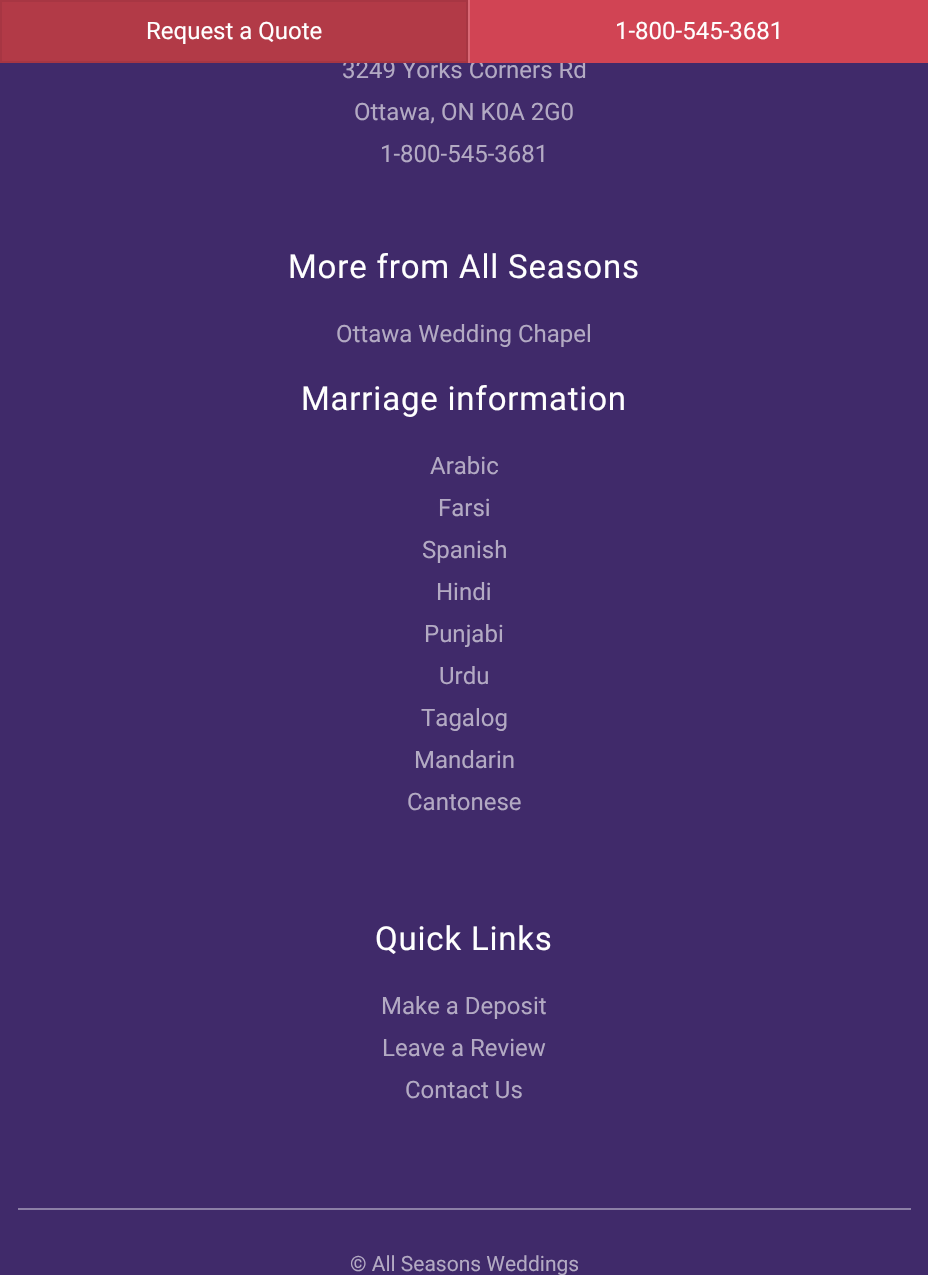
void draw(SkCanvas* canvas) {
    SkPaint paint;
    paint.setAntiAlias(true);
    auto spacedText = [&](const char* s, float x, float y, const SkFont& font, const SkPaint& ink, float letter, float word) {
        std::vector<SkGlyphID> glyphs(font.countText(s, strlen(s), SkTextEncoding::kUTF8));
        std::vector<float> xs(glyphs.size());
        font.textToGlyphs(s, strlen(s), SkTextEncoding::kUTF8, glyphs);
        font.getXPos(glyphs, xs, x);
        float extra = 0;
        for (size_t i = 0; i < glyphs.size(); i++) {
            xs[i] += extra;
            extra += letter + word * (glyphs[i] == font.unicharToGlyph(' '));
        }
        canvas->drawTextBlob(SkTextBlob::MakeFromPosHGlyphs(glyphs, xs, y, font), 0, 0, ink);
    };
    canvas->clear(0xFF402A6A);
    SkFont font1(fontMgr->matchFamilyStyle("Roboto", SkFontStyle::Normal()), 24);
    font1.setSubpixel(true);
    paint.setColor(0xFFB3AAC3);
    canvas->drawString("3249 Yorks Corners Rd", 342, 78, font1, paint);
    paint.setColor(0xFFD14454);
    canvas->drawRect(SkRect::MakeXYWH(470, 0, 458, 63), paint);
    paint.setColor(0xFFDA6976);
    canvas->drawRect(SkRect::MakeXYWH(468, 0, 2, 63), paint);
    paint.setColor(0xFFB23A47);
    canvas->drawRect(SkRect::MakeXYWH(1, 1, 466, 61), paint);
    paint.setStyle(SkPaint::kStroke_Style);
    paint.setStrokeWidth(2);
    paint.setColor(0xFFA73643);
    canvas->drawRect(SkRect::MakeXYWH(1, 1, 466, 61), paint);
    paint.setStyle(SkPaint::kFill_Style);
    paint.setColor(0xFFFFFFFF);
    canvas->drawString("Request a Quote", 146, 39, font1, paint);
    canvas->drawString("1-800-545-3681", 615, 39, font1, paint);
    paint.setColor(0xFFB3AAC3);
    canvas->drawString("Ottawa, ON K0A 2G0", 354, 120, font1, paint);
    canvas->drawString("1-800-545-3681", 380, 162, font1, paint);
    SkFont font2(fontMgr->matchFamilyStyle("Roboto", SkFontStyle::Normal()), 33);
    font2.setSubpixel(true);
    paint.setColor(0xFFFFFFFF);
    spacedText("More from All Seasons", 288, 278, font2, paint, 0.8f, 0);
    paint.setColor(0xFFB3AAC3);
    canvas->drawString("Ottawa Wedding Chapel", 336, 342, font1, paint);
    paint.setColor(0xFFFFFFFF);
    spacedText("Marriage information", 301, 410, font2, paint, 0.8f, 0);
    paint.setColor(0xFFB3AAC3);
    canvas->drawString("Arabic", 430, 474, font1, paint);
    canvas->drawString("Farsi", 438, 516, font1, paint);
    canvas->drawString("Spanish", 422, 558, font1, paint);
    canvas->drawString("Hindi", 436, 600, font1, paint);
    canvas->drawString("Punjabi", 424, 642, font1, paint);
    canvas->drawString("Urdu", 439, 684, font1, paint);
    canvas->drawString("Tagalog", 421, 726, font1, paint);
    canvas->drawString("Mandarin", 414, 768, font1, paint);
    canvas->drawString("Cantonese", 407, 810, font1, paint);
    paint.setColor(0xFFFFFFFF);
    spacedText("Quick Links", 375, 950, font2, paint, 0.8f, 0);
    paint.setColor(0xFFB3AAC3);
    canvas->drawString("Make a Deposit", 381, 1014, font1, paint);
    canvas->drawString("Leave a Review", 382, 1056, font1, paint);
    canvas->drawString("Contact Us", 405, 1098, font1, paint);
    paint.setColor(0xFF8C7FA6);
    canvas->drawRect(SkRect::MakeXYWH(18, 1208, 893, 2), paint);
    SkFont font3(fontMgr->matchFamilyStyle("Roboto", SkFontStyle::Normal()), 21);
    font3.setSubpixel(true);
    paint.setColor(0xFFB3AAC3);
    canvas->drawString("© All Seasons Weddings", 350, 1271, font3, paint);
}
